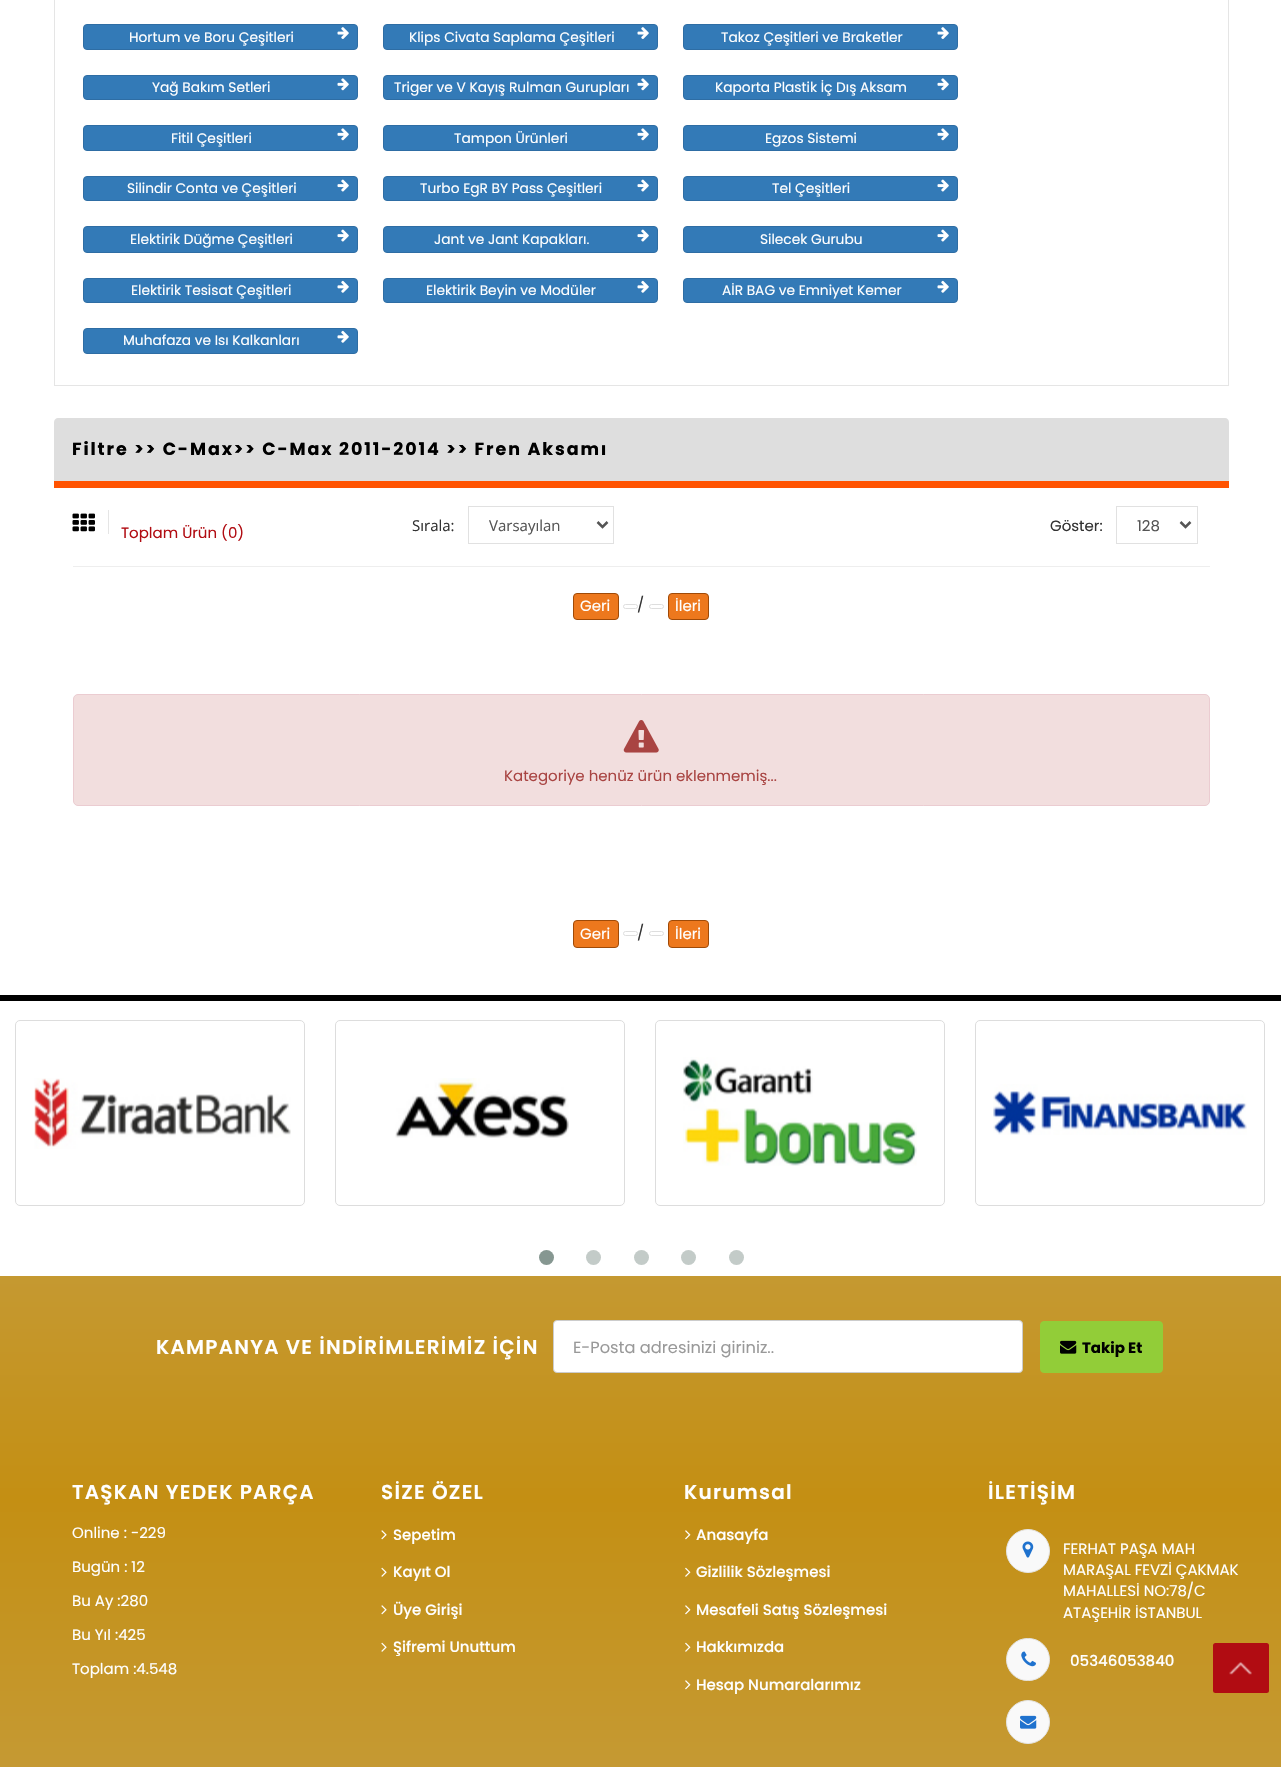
void draw(SkCanvas* canvas) {
    SkPaint paint;
    paint.setAntiAlias(true);
    auto spacedText = [&](const char* s, float x, float y, const SkFont& font, const SkPaint& ink, float letter, float word) {
        std::vector<SkGlyphID> glyphs(font.countText(s, strlen(s), SkTextEncoding::kUTF8));
        std::vector<float> xs(glyphs.size());
        font.textToGlyphs(s, strlen(s), SkTextEncoding::kUTF8, glyphs);
        font.getXPos(glyphs, xs, x);
        float extra = 0;
        for (size_t i = 0; i < glyphs.size(); i++) {
            xs[i] += extra;
            extra += letter + word * (glyphs[i] == font.unicharToGlyph(' '));
        }
        canvas->drawTextBlob(SkTextBlob::MakeFromPosHGlyphs(glyphs, xs, y, font), 0, 0, ink);
    };
    canvas->clear(0xFFFFFFFF);
    paint.setColor(0xFFE5E5E5);
    canvas->drawRect(SkRect::MakeXYWH(1228, 0, 1, 386), paint);
    canvas->drawRect(SkRect::MakeXYWH(54, 385, 1175, 1), paint);
    canvas->drawRect(SkRect::MakeXYWH(54, 0, 1, 386), paint);
    paint.setColor(0xFF337AB7);
    canvas->drawRoundRect(SkRect::MakeXYWH(83.5f, 24.5f, 274, 25), 3.5f, 3.5f, paint);
    paint.setStyle(SkPaint::kStroke_Style);
    paint.setStrokeWidth(1);
    paint.setColor(0xFF2E6DA4);
    canvas->drawRoundRect(SkRect::MakeXYWH(83.5f, 24.5f, 274, 25), 3.5f, 3.5f, paint);
    SkFont font1(fontMgr->matchFamilyStyle("Poppins", SkFontStyle::Normal()), 13.75f);
    font1.setSubpixel(true);
    paint.setStyle(SkPaint::kFill_Style);
    paint.setColor(0xFFFFFFFF);
    canvas->drawString("Hortum ve Boru Çeşitleri", 129, 42, font1, paint);
    canvas->drawImageRect(SkImages::DeferredFromEncodedData(SkData::MakeFromFileName("img1.png")), SkRect::MakeXYWH(337, 27, 12, 12), SkSamplingOptions());
    paint.setColor(0xFF337AB7);
    canvas->drawRoundRect(SkRect::MakeXYWH(383.5f, 24.5f, 274, 25), 3.5f, 3.5f, paint);
    paint.setStyle(SkPaint::kStroke_Style);
    paint.setColor(0xFF2E6DA4);
    canvas->drawRoundRect(SkRect::MakeXYWH(383.5f, 24.5f, 274, 25), 3.5f, 3.5f, paint);
    paint.setStyle(SkPaint::kFill_Style);
    paint.setColor(0xFFFFFFFF);
    canvas->drawString("Klips Civata Saplama Çeşitleri", 409, 42, font1, paint);
    canvas->drawImageRect(SkImages::DeferredFromEncodedData(SkData::MakeFromFileName("img1.png")), SkRect::MakeXYWH(637, 27, 12, 12), SkSamplingOptions());
    paint.setColor(0xFF337AB7);
    canvas->drawRoundRect(SkRect::MakeXYWH(683.5f, 24.5f, 274, 25), 3.5f, 3.5f, paint);
    paint.setStyle(SkPaint::kStroke_Style);
    paint.setColor(0xFF2E6DA4);
    canvas->drawRoundRect(SkRect::MakeXYWH(683.5f, 24.5f, 274, 25), 3.5f, 3.5f, paint);
    paint.setStyle(SkPaint::kFill_Style);
    paint.setColor(0xFFFFFFFF);
    canvas->drawString("Takoz Çeşitleri ve Braketler", 721, 42, font1, paint);
    canvas->drawImageRect(SkImages::DeferredFromEncodedData(SkData::MakeFromFileName("img1.png")), SkRect::MakeXYWH(937, 27, 12, 12), SkSamplingOptions());
    paint.setColor(0xFF337AB7);
    canvas->drawRoundRect(SkRect::MakeXYWH(83.5f, 75.5f, 274, 24), 3.5f, 3.5f, paint);
    paint.setStyle(SkPaint::kStroke_Style);
    paint.setColor(0xFF2E6DA4);
    canvas->drawRoundRect(SkRect::MakeXYWH(83.5f, 75.5f, 274, 24), 3.5f, 3.5f, paint);
    paint.setStyle(SkPaint::kFill_Style);
    paint.setColor(0xFFFFFFFF);
    canvas->drawString("Yağ Bakım Setleri", 152, 92, font1, paint);
    canvas->drawImageRect(SkImages::DeferredFromEncodedData(SkData::MakeFromFileName("img2.png")), SkRect::MakeXYWH(337, 78, 12, 13), SkSamplingOptions());
    paint.setColor(0xFF337AB7);
    canvas->drawRoundRect(SkRect::MakeXYWH(383.5f, 75.5f, 274, 24), 3.5f, 3.5f, paint);
    paint.setStyle(SkPaint::kStroke_Style);
    paint.setColor(0xFF2E6DA4);
    canvas->drawRoundRect(SkRect::MakeXYWH(383.5f, 75.5f, 274, 24), 3.5f, 3.5f, paint);
    paint.setStyle(SkPaint::kFill_Style);
    paint.setColor(0xFFFFFFFF);
    canvas->drawString("Triger ve V Kayış Rulman Gurupları", 394, 92, font1, paint);
    canvas->drawImageRect(SkImages::DeferredFromEncodedData(SkData::MakeFromFileName("img2.png")), SkRect::MakeXYWH(637, 78, 12, 13), SkSamplingOptions());
    paint.setColor(0xFF337AB7);
    canvas->drawRoundRect(SkRect::MakeXYWH(683.5f, 75.5f, 274, 24), 3.5f, 3.5f, paint);
    paint.setStyle(SkPaint::kStroke_Style);
    paint.setColor(0xFF2E6DA4);
    canvas->drawRoundRect(SkRect::MakeXYWH(683.5f, 75.5f, 274, 24), 3.5f, 3.5f, paint);
    paint.setStyle(SkPaint::kFill_Style);
    paint.setColor(0xFFFFFFFF);
    canvas->drawString("Kaporta Plastik İç Dış Aksam", 715, 92, font1, paint);
    canvas->drawImageRect(SkImages::DeferredFromEncodedData(SkData::MakeFromFileName("img2.png")), SkRect::MakeXYWH(937, 78, 12, 13), SkSamplingOptions());
    paint.setColor(0xFF337AB7);
    canvas->drawRoundRect(SkRect::MakeXYWH(83.5f, 125.5f, 274, 25), 3.5f, 3.5f, paint);
    paint.setStyle(SkPaint::kStroke_Style);
    paint.setColor(0xFF2E6DA4);
    canvas->drawRoundRect(SkRect::MakeXYWH(83.5f, 125.5f, 274, 25), 3.5f, 3.5f, paint);
    paint.setStyle(SkPaint::kFill_Style);
    paint.setColor(0xFFFFFFFF);
    canvas->drawString("Fitil Çeşitleri", 171, 143, font1, paint);
    canvas->drawImageRect(SkImages::DeferredFromEncodedData(SkData::MakeFromFileName("img2.png")), SkRect::MakeXYWH(337, 128, 12, 13), SkSamplingOptions());
    paint.setColor(0xFF337AB7);
    canvas->drawRoundRect(SkRect::MakeXYWH(383.5f, 125.5f, 274, 25), 3.5f, 3.5f, paint);
    paint.setStyle(SkPaint::kStroke_Style);
    paint.setColor(0xFF2E6DA4);
    canvas->drawRoundRect(SkRect::MakeXYWH(383.5f, 125.5f, 274, 25), 3.5f, 3.5f, paint);
    paint.setStyle(SkPaint::kFill_Style);
    paint.setColor(0xFFFFFFFF);
    canvas->drawString("Tampon Ürünleri", 454, 143, font1, paint);
    canvas->drawImageRect(SkImages::DeferredFromEncodedData(SkData::MakeFromFileName("img2.png")), SkRect::MakeXYWH(637, 128, 12, 13), SkSamplingOptions());
    paint.setColor(0xFF337AB7);
    canvas->drawRoundRect(SkRect::MakeXYWH(683.5f, 125.5f, 274, 25), 3.5f, 3.5f, paint);
    paint.setStyle(SkPaint::kStroke_Style);
    paint.setColor(0xFF2E6DA4);
    canvas->drawRoundRect(SkRect::MakeXYWH(683.5f, 125.5f, 274, 25), 3.5f, 3.5f, paint);
    paint.setStyle(SkPaint::kFill_Style);
    paint.setColor(0xFFFFFFFF);
    canvas->drawString("Egzos Sistemi", 765, 143, font1, paint);
    canvas->drawImageRect(SkImages::DeferredFromEncodedData(SkData::MakeFromFileName("img2.png")), SkRect::MakeXYWH(937, 128, 12, 13), SkSamplingOptions());
    paint.setColor(0xFF337AB7);
    canvas->drawRoundRect(SkRect::MakeXYWH(83.5f, 176.5f, 274, 24), 3.5f, 3.5f, paint);
    paint.setStyle(SkPaint::kStroke_Style);
    paint.setColor(0xFF2E6DA4);
    canvas->drawRoundRect(SkRect::MakeXYWH(83.5f, 176.5f, 274, 24), 3.5f, 3.5f, paint);
    paint.setStyle(SkPaint::kFill_Style);
    paint.setColor(0xFFFFFFFF);
    canvas->drawString("Silindir Conta ve Çeşitleri", 127, 193, font1, paint);
    canvas->drawImageRect(SkImages::DeferredFromEncodedData(SkData::MakeFromFileName("img3.png")), SkRect::MakeXYWH(337, 179, 12, 13), SkSamplingOptions());
    paint.setColor(0xFF337AB7);
    canvas->drawRoundRect(SkRect::MakeXYWH(383.5f, 176.5f, 274, 24), 3.5f, 3.5f, paint);
    paint.setStyle(SkPaint::kStroke_Style);
    paint.setColor(0xFF2E6DA4);
    canvas->drawRoundRect(SkRect::MakeXYWH(383.5f, 176.5f, 274, 24), 3.5f, 3.5f, paint);
    paint.setStyle(SkPaint::kFill_Style);
    paint.setColor(0xFFFFFFFF);
    canvas->drawString("Turbo EgR BY Pass Çeşitleri", 420, 193, font1, paint);
    canvas->drawImageRect(SkImages::DeferredFromEncodedData(SkData::MakeFromFileName("img3.png")), SkRect::MakeXYWH(637, 179, 12, 13), SkSamplingOptions());
    paint.setColor(0xFF337AB7);
    canvas->drawRoundRect(SkRect::MakeXYWH(683.5f, 176.5f, 274, 24), 3.5f, 3.5f, paint);
    paint.setStyle(SkPaint::kStroke_Style);
    paint.setColor(0xFF2E6DA4);
    canvas->drawRoundRect(SkRect::MakeXYWH(683.5f, 176.5f, 274, 24), 3.5f, 3.5f, paint);
    paint.setStyle(SkPaint::kFill_Style);
    paint.setColor(0xFFFFFFFF);
    canvas->drawString("Tel Çeşitleri", 772, 193, font1, paint);
    canvas->drawImageRect(SkImages::DeferredFromEncodedData(SkData::MakeFromFileName("img3.png")), SkRect::MakeXYWH(937, 179, 12, 13), SkSamplingOptions());
    paint.setColor(0xFF337AB7);
    canvas->drawRoundRect(SkRect::MakeXYWH(83.5f, 226.5f, 274, 26), 3.5f, 3.5f, paint);
    paint.setStyle(SkPaint::kStroke_Style);
    paint.setColor(0xFF2E6DA4);
    canvas->drawRoundRect(SkRect::MakeXYWH(83.5f, 226.5f, 274, 26), 3.5f, 3.5f, paint);
    paint.setStyle(SkPaint::kFill_Style);
    paint.setColor(0xFFFFFFFF);
    canvas->drawString("Elektirik Düğme Çeşitleri", 130, 244, font1, paint);
    canvas->drawImageRect(SkImages::DeferredFromEncodedData(SkData::MakeFromFileName("img3.png")), SkRect::MakeXYWH(337, 229, 12, 13), SkSamplingOptions());
    paint.setColor(0xFF337AB7);
    canvas->drawRoundRect(SkRect::MakeXYWH(383.5f, 226.5f, 274, 26), 3.5f, 3.5f, paint);
    paint.setStyle(SkPaint::kStroke_Style);
    paint.setColor(0xFF2E6DA4);
    canvas->drawRoundRect(SkRect::MakeXYWH(383.5f, 226.5f, 274, 26), 3.5f, 3.5f, paint);
    paint.setStyle(SkPaint::kFill_Style);
    paint.setColor(0xFFFFFFFF);
    canvas->drawString("Jant ve Jant Kapakları.", 434, 244, font1, paint);
    canvas->drawImageRect(SkImages::DeferredFromEncodedData(SkData::MakeFromFileName("img3.png")), SkRect::MakeXYWH(637, 229, 12, 13), SkSamplingOptions());
    paint.setColor(0xFF337AB7);
    canvas->drawRoundRect(SkRect::MakeXYWH(683.5f, 226.5f, 274, 26), 3.5f, 3.5f, paint);
    paint.setStyle(SkPaint::kStroke_Style);
    paint.setColor(0xFF2E6DA4);
    canvas->drawRoundRect(SkRect::MakeXYWH(683.5f, 226.5f, 274, 26), 3.5f, 3.5f, paint);
    paint.setStyle(SkPaint::kFill_Style);
    paint.setColor(0xFFFFFFFF);
    canvas->drawString("Silecek Gurubu", 760, 244, font1, paint);
    canvas->drawImageRect(SkImages::DeferredFromEncodedData(SkData::MakeFromFileName("img3.png")), SkRect::MakeXYWH(937, 229, 12, 13), SkSamplingOptions());
    paint.setColor(0xFF337AB7);
    canvas->drawRoundRect(SkRect::MakeXYWH(83.5f, 278.5f, 274, 24), 3.5f, 3.5f, paint);
    paint.setStyle(SkPaint::kStroke_Style);
    paint.setColor(0xFF2E6DA4);
    canvas->drawRoundRect(SkRect::MakeXYWH(83.5f, 278.5f, 274, 24), 3.5f, 3.5f, paint);
    paint.setStyle(SkPaint::kFill_Style);
    paint.setColor(0xFFFFFFFF);
    canvas->drawString("Elektirik Tesisat Çeşitleri", 131, 295, font1, paint);
    canvas->drawImageRect(SkImages::DeferredFromEncodedData(SkData::MakeFromFileName("img4.png")), SkRect::MakeXYWH(337, 280, 12, 13), SkSamplingOptions());
    paint.setColor(0xFF337AB7);
    canvas->drawRoundRect(SkRect::MakeXYWH(383.5f, 278.5f, 274, 24), 3.5f, 3.5f, paint);
    paint.setStyle(SkPaint::kStroke_Style);
    paint.setColor(0xFF2E6DA4);
    canvas->drawRoundRect(SkRect::MakeXYWH(383.5f, 278.5f, 274, 24), 3.5f, 3.5f, paint);
    paint.setStyle(SkPaint::kFill_Style);
    paint.setColor(0xFFFFFFFF);
    canvas->drawString("Elektirik Beyin ve Modüler", 426, 295, font1, paint);
    canvas->drawImageRect(SkImages::DeferredFromEncodedData(SkData::MakeFromFileName("img4.png")), SkRect::MakeXYWH(637, 280, 12, 13), SkSamplingOptions());
    paint.setColor(0xFF337AB7);
    canvas->drawRoundRect(SkRect::MakeXYWH(683.5f, 278.5f, 274, 24), 3.5f, 3.5f, paint);
    paint.setStyle(SkPaint::kStroke_Style);
    paint.setColor(0xFF2E6DA4);
    canvas->drawRoundRect(SkRect::MakeXYWH(683.5f, 278.5f, 274, 24), 3.5f, 3.5f, paint);
    paint.setStyle(SkPaint::kFill_Style);
    paint.setColor(0xFFFFFFFF);
    canvas->drawString("AİR BAG ve Emniyet Kemer", 722, 295, font1, paint);
    canvas->drawImageRect(SkImages::DeferredFromEncodedData(SkData::MakeFromFileName("img4.png")), SkRect::MakeXYWH(937, 280, 12, 13), SkSamplingOptions());
    paint.setColor(0xFF337AB7);
    canvas->drawRoundRect(SkRect::MakeXYWH(83.5f, 328.5f, 274, 25), 3.5f, 3.5f, paint);
    paint.setStyle(SkPaint::kStroke_Style);
    paint.setColor(0xFF2E6DA4);
    canvas->drawRoundRect(SkRect::MakeXYWH(83.5f, 328.5f, 274, 25), 3.5f, 3.5f, paint);
    paint.setStyle(SkPaint::kFill_Style);
    paint.setColor(0xFFFFFFFF);
    canvas->drawString("Muhafaza ve Isı Kalkanları", 123, 345, font1, paint);
    canvas->drawImageRect(SkImages::DeferredFromEncodedData(SkData::MakeFromFileName("img4.png")), SkRect::MakeXYWH(337, 330, 12, 13), SkSamplingOptions());
    paint.setColor(0xFFDEDEDE);
    canvas->drawPath(SkPathBuilder().moveTo(58, 418).lineTo(1225, 418).cubicTo(1227, 418, 1229, 420, 1229, 422).lineTo(1229, 488).lineTo(54, 488).lineTo(54, 422).cubicTo(54, 420, 56, 418, 58, 418).close().detach(), paint);
    paint.setColor(0xFFFF5301);
    canvas->drawRect(SkRect::MakeXYWH(54, 481, 1175, 7), paint);
    SkFont font2(fontMgr->matchFamilyStyle("Poppins", SkFontStyle::Bold()), 17.5f);
    font2.setSubpixel(true);
    paint.setColor(0xFF000000);
    spacedText("Filtre >> C-Max>> C-Max 2011-2014 >> Fren Aksamı", 72, 455, font2, paint, 1.9f, 0);
    paint.setColor(0xFFE5E5E5);
    canvas->drawRect(SkRect::MakeXYWH(108, 510, 1, 24), paint);
    canvas->drawImageRect(SkImages::DeferredFromEncodedData(SkData::MakeFromFileName("img5.png")), SkRect::MakeXYWH(72, 513, 23, 19), SkSamplingOptions());
    SkFont font3(fontMgr->matchFamilyStyle("Poppins", SkFontStyle::Normal()), 15);
    font3.setSubpixel(true);
    paint.setColor(0xFFB10C12);
    canvas->drawString("Toplam Ürün (0)", 121, 538, font3, paint);
    SkFont font4(fontMgr->matchFamilyStyle("Open Sans", SkFontStyle::Normal()), 15);
    font4.setSubpixel(true);
    paint.setColor(0xFF333333);
    canvas->drawString("Sırala:", 412, 531, font4, paint);
    paint.setStyle(SkPaint::kStroke_Style);
    paint.setColor(0xFFE1E1E1);
    canvas->drawRect(SkRect::MakeXYWH(468.5f, 506.5f, 145, 37), paint);
    paint.setStrokeWidth(2.5f);
    paint.setColor(0xFF555555);
    canvas->drawPath(SkPathBuilder().moveTo(597.5f, 522).lineTo(602.5f, 527).lineTo(607.5f, 522).detach(), paint);
    paint.setStyle(SkPaint::kFill_Style);
    canvas->drawString("Varsayılan", 489, 531, font4, paint);
    paint.setColor(0xFF333333);
    canvas->drawString("Göster:", 1050, 531, font3, paint);
    paint.setStyle(SkPaint::kStroke_Style);
    paint.setStrokeWidth(1);
    paint.setColor(0xFFE1E1E1);
    canvas->drawRect(SkRect::MakeXYWH(1116.5f, 506.5f, 81, 37), paint);
    paint.setStrokeWidth(2.5f);
    paint.setColor(0xFF555555);
    canvas->drawPath(SkPathBuilder().moveTo(1180.5f, 522).lineTo(1185.5f, 527).lineTo(1190.5f, 522).detach(), paint);
    paint.setStyle(SkPaint::kFill_Style);
    canvas->drawString("128", 1137, 531, font3, paint);
    paint.setColor(0xFFEEEEEE);
    canvas->drawRect(SkRect::MakeXYWH(73, 566, 1137, 1), paint);
    paint.setColor(0xFFED781D);
    canvas->drawRoundRect(SkRect::MakeXYWH(573.5f, 593.5f, 45, 26), 3.5f, 3.5f, paint);
    paint.setStyle(SkPaint::kStroke_Style);
    paint.setStrokeWidth(1);
    paint.setColor(0xFFA04A07);
    canvas->drawRoundRect(SkRect::MakeXYWH(573.5f, 593.5f, 45, 26), 3.5f, 3.5f, paint);
    paint.setStyle(SkPaint::kFill_Style);
    paint.setColor(0xFFFFFFFF);
    canvas->drawString("Geri", 580, 611, font3, paint);
    paint.setStyle(SkPaint::kStroke_Style);
    paint.setColor(0xFFDEDEDE);
    canvas->drawRoundRect(SkRect::MakeXYWH(623.5f, 604.5f, 14, 4), 2, 2, paint);
    paint.setStyle(SkPaint::kFill_Style);
    paint.setColor(0xFF333333);
    canvas->drawString("/", 637, 610, font3, paint);
    paint.setStyle(SkPaint::kStroke_Style);
    paint.setColor(0xFFDEDEDE);
    canvas->drawRoundRect(SkRect::MakeXYWH(649.5f, 604.5f, 14, 4), 2, 2, paint);
    paint.setStyle(SkPaint::kFill_Style);
    paint.setColor(0xFFED781D);
    canvas->drawRoundRect(SkRect::MakeXYWH(668.5f, 593.5f, 40, 26), 3.5f, 3.5f, paint);
    paint.setStyle(SkPaint::kStroke_Style);
    paint.setColor(0xFFA04A07);
    canvas->drawRoundRect(SkRect::MakeXYWH(668.5f, 593.5f, 40, 26), 3.5f, 3.5f, paint);
    paint.setStyle(SkPaint::kFill_Style);
    paint.setColor(0xFFFFFFFF);
    canvas->drawString("İleri", 675, 611, font3, paint);
    paint.setColor(0xFFF2DEDE);
    canvas->drawRoundRect(SkRect::MakeXYWH(73.5f, 694.5f, 1136, 111), 4.5f, 4.5f, paint);
    paint.setStyle(SkPaint::kStroke_Style);
    paint.setColor(0xFFEBCCD1);
    canvas->drawRoundRect(SkRect::MakeXYWH(73.5f, 694.5f, 1136, 111), 4.5f, 4.5f, paint);
    canvas->drawImageRect(SkImages::DeferredFromEncodedData(SkData::MakeFromFileName("img6.png")), SkRect::MakeXYWH(623, 720, 36, 33), SkSamplingOptions());
    paint.setStyle(SkPaint::kFill_Style);
    paint.setColor(0xFFA94442);
    canvas->drawString("Kategoriye henüz ürün eklenmemiş...", 504, 781, font3, paint);
    paint.setColor(0xFFED781D);
    canvas->drawRoundRect(SkRect::MakeXYWH(573.5f, 920.5f, 45, 27), 3.5f, 3.5f, paint);
    paint.setStyle(SkPaint::kStroke_Style);
    paint.setColor(0xFFA04A07);
    canvas->drawRoundRect(SkRect::MakeXYWH(573.5f, 920.5f, 45, 27), 3.5f, 3.5f, paint);
    paint.setStyle(SkPaint::kFill_Style);
    paint.setColor(0xFFFFFFFF);
    canvas->drawString("Geri", 580, 939, font3, paint);
    paint.setStyle(SkPaint::kStroke_Style);
    paint.setColor(0xFFDEDEDE);
    canvas->drawRoundRect(SkRect::MakeXYWH(623.5f, 931.5f, 14, 4), 2, 2, paint);
    paint.setStyle(SkPaint::kFill_Style);
    paint.setColor(0xFF333333);
    canvas->drawString("/", 637, 938, font3, paint);
    paint.setStyle(SkPaint::kStroke_Style);
    paint.setColor(0xFFDEDEDE);
    canvas->drawRoundRect(SkRect::MakeXYWH(649.5f, 931.5f, 14, 4), 2, 2, paint);
    paint.setStyle(SkPaint::kFill_Style);
    paint.setColor(0xFFED781D);
    canvas->drawRoundRect(SkRect::MakeXYWH(668.5f, 920.5f, 40, 27), 3.5f, 3.5f, paint);
    paint.setStyle(SkPaint::kStroke_Style);
    paint.setColor(0xFFA04A07);
    canvas->drawRoundRect(SkRect::MakeXYWH(668.5f, 920.5f, 40, 27), 3.5f, 3.5f, paint);
    paint.setStyle(SkPaint::kFill_Style);
    paint.setColor(0xFFFFFFFF);
    canvas->drawString("İleri", 675, 939, font3, paint);
    {
        const SkColor colors[] = {0xFFC6A556, 0xFFC48F13, 0xFFC6A556};
        const float stops[] = {0, 0.47f, 1};
        const SkPoint ends[] = {{641, 1001}, {641, 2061}};
        paint.setShader(SkGradientShader::MakeLinear(ends, colors, stops, 3, SkTileMode::kClamp));
        paint.setAlpha(255);
    }
    canvas->drawRect(SkRect::MakeXYWH(0, 1276, 1281, 491), paint);
    paint.setShader(nullptr);
    paint.setColor(0xFF000000);
    canvas->drawRect(SkRect::MakeXYWH(0, 995, 1281, 6), paint);
    paint.setStyle(SkPaint::kStroke_Style);
    paint.setColor(0xFFDDDDDD);
    canvas->drawRoundRect(SkRect::MakeXYWH(15.5f, 1020.5f, 289, 185), 4.5f, 4.5f, paint);
    canvas->drawImageRect(SkImages::DeferredFromEncodedData(SkData::MakeFromFileName("img7.png")), SkRect::MakeXYWH(34, 1078, 257, 71), SkSamplingOptions());
    canvas->drawRoundRect(SkRect::MakeXYWH(335.5f, 1020.5f, 289, 185), 4.5f, 4.5f, paint);
    canvas->drawImageRect(SkImages::DeferredFromEncodedData(SkData::MakeFromFileName("img8.png")), SkRect::MakeXYWH(395, 1078, 174, 60), SkSamplingOptions());
    canvas->drawRoundRect(SkRect::MakeXYWH(655.5f, 1020.5f, 289, 185), 4.5f, 4.5f, paint);
    canvas->drawImageRect(SkImages::DeferredFromEncodedData(SkData::MakeFromFileName("img9.png")), SkRect::MakeXYWH(683, 1057, 234, 109), SkSamplingOptions());
    canvas->drawRoundRect(SkRect::MakeXYWH(975.5f, 1020.5f, 289, 185), 4.5f, 4.5f, paint);
    canvas->drawImageRect(SkImages::DeferredFromEncodedData(SkData::MakeFromFileName("img10.png")), SkRect::MakeXYWH(993, 1084, 254, 51), SkSamplingOptions());
    paint.setStyle(SkPaint::kFill_Style);
    paint.setColor(0xFF869791);
    canvas->drawCircle(546.5f, 1257.5f, 7.5f, paint);
    paint.setColor(0xFFC3CBC8);
    canvas->drawCircle(593.5f, 1257.5f, 7.5f, paint);
    canvas->drawCircle(641.5f, 1257.5f, 7.5f, paint);
    canvas->drawCircle(688.5f, 1257.5f, 7.5f, paint);
    canvas->drawCircle(736.5f, 1257.5f, 7.5f, paint);
    SkFont font5(fontMgr->matchFamilyStyle("Poppins", SkFontStyle(600, SkFontStyle::kNormal_Width, SkFontStyle::kUpright_Slant)), 20);
    font5.setSubpixel(true);
    paint.setColor(0xFFFFFFFF);
    spacedText("KAMPANYA VE İNDİRİMLERİMİZ İÇİN", 156, 1354, font5, paint, 1.25f, 0);
    canvas->drawRoundRect(SkRect::MakeXYWH(553.5f, 1320.5f, 469, 52), 3.5f, 3.5f, paint);
    paint.setStyle(SkPaint::kStroke_Style);
    paint.setColor(0xFFCCCCCC);
    canvas->drawRoundRect(SkRect::MakeXYWH(553.5f, 1320.5f, 469, 52), 3.5f, 3.5f, paint);
    SkFont font6(fontMgr->matchFamilyStyle("Poppins", SkFontStyle::Normal()), 16.25f);
    font6.setSubpixel(true);
    paint.setStyle(SkPaint::kFill_Style);
    paint.setColor(0xFF999999);
    canvas->drawString("E-Posta adresinizi giriniz..", 573, 1353, font6, paint);
    paint.setColor(0xFF92CD38);
    canvas->drawRoundRect(SkRect::MakeXYWH(1040.5f, 1321.5f, 122, 51), 3.5f, 3.5f, paint);
    paint.setStyle(SkPaint::kStroke_Style);
    canvas->drawRoundRect(SkRect::MakeXYWH(1040.5f, 1321.5f, 122, 51), 3.5f, 3.5f, paint);
    canvas->drawImageRect(SkImages::DeferredFromEncodedData(SkData::MakeFromFileName("img11.png")), SkRect::MakeXYWH(1060, 1340, 17, 14), SkSamplingOptions());
    SkFont font7(fontMgr->matchFamilyStyle("Poppins", SkFontStyle::Bold()), 15);
    font7.setSubpixel(true);
    paint.setStyle(SkPaint::kFill_Style);
    paint.setColor(0xFF000000);
    canvas->drawString("Takip Et", 1082, 1353, font7, paint);
    paint.setColor(0xFFFFFFFF);
    spacedText("TAŞKAN YEDEK PARÇA", 72, 1499, font5, paint, 1.25f, 0);
    canvas->drawString("Online : -229", 72, 1538, font3, paint);
    canvas->drawString("Bugün : 12", 72, 1572, font3, paint);
    canvas->drawString("Bu Ay :280", 72, 1606, font3, paint);
    canvas->drawString("Bu Yıl :425", 72, 1640, font3, paint);
    canvas->drawString("Toplam :4.548", 72, 1674, font3, paint);
    spacedText("SİZE ÖZEL", 381, 1499, font5, paint, 1.25f, 0);
    canvas->drawImageRect(SkImages::DeferredFromEncodedData(SkData::MakeFromFileName("img12.png")), SkRect::MakeXYWH(381, 1530, 6, 10), SkSamplingOptions());
    SkFont font8(fontMgr->matchFamilyStyle("Poppins", SkFontStyle(500, SkFontStyle::kNormal_Width, SkFontStyle::kUpright_Slant)), 15);
    font8.setSubpixel(true);
    canvas->drawString("Sepetim", 393, 1540, font8, paint);
    canvas->drawImageRect(SkImages::DeferredFromEncodedData(SkData::MakeFromFileName("img13.png")), SkRect::MakeXYWH(381, 1567, 6, 10), SkSamplingOptions());
    canvas->drawString("Kayıt Ol", 393, 1577, font8, paint);
    canvas->drawImageRect(SkImages::DeferredFromEncodedData(SkData::MakeFromFileName("img14.png")), SkRect::MakeXYWH(381, 1605, 6, 10), SkSamplingOptions());
    canvas->drawString("Üye Girişi", 393, 1615, font8, paint);
    canvas->drawImageRect(SkImages::DeferredFromEncodedData(SkData::MakeFromFileName("img15.png")), SkRect::MakeXYWH(381, 1642, 6, 10), SkSamplingOptions());
    canvas->drawString("Şifremi Unuttum", 393, 1652, font8, paint);
    spacedText("Kurumsal", 684, 1499, font5, paint, 1.25f, 0);
    canvas->drawImageRect(SkImages::DeferredFromEncodedData(SkData::MakeFromFileName("img16.png")), SkRect::MakeXYWH(685, 1530, 6, 10), SkSamplingOptions());
    canvas->drawString("Anasayfa", 696, 1540, font8, paint);
    canvas->drawImageRect(SkImages::DeferredFromEncodedData(SkData::MakeFromFileName("img17.png")), SkRect::MakeXYWH(685, 1567, 6, 10), SkSamplingOptions());
    canvas->drawString("Gizlilik Sözleşmesi", 696, 1577, font8, paint);
    canvas->drawImageRect(SkImages::DeferredFromEncodedData(SkData::MakeFromFileName("img18.png")), SkRect::MakeXYWH(685, 1605, 6, 10), SkSamplingOptions());
    canvas->drawString("Mesafeli Satış Sözleşmesi", 696, 1615, font8, paint);
    canvas->drawImageRect(SkImages::DeferredFromEncodedData(SkData::MakeFromFileName("img19.png")), SkRect::MakeXYWH(685, 1642, 6, 10), SkSamplingOptions());
    canvas->drawString("Hakkımızda", 696, 1652, font8, paint);
    canvas->drawImageRect(SkImages::DeferredFromEncodedData(SkData::MakeFromFileName("img20.png")), SkRect::MakeXYWH(685, 1680, 6, 10), SkSamplingOptions());
    canvas->drawString("Hesap Numaralarımız", 696, 1690, font8, paint);
    spacedText("İLETİŞİM", 988, 1499, font5, paint, 1.25f, 0);
    paint.setColor(0xFFF9F9F9);
    canvas->drawCircle(1028, 1551, 21.5f, paint);
    paint.setStyle(SkPaint::kStroke_Style);
    paint.setColor(0xFFE5E5E5);
    canvas->drawCircle(1028, 1551, 21.5f, paint);
    canvas->drawImageRect(SkImages::DeferredFromEncodedData(SkData::MakeFromFileName("img21.png")), SkRect::MakeXYWH(1022, 1541, 12, 17), SkSamplingOptions());
    paint.setStyle(SkPaint::kFill_Style);
    paint.setColor(0xFFFFFFFF);
    canvas->drawString("FERHAT PAŞA MAH", 1063, 1554, font3, paint);
    canvas->drawString("MARAŞAL FEVZİ ÇAKMAK", 1063, 1575, font3, paint);
    canvas->drawString("MAHALLESİ NO:78/C", 1063, 1596, font3, paint);
    canvas->drawString("ATAŞEHİR İSTANBUL", 1063, 1618, font3, paint);
    paint.setColor(0xFFF9F9F9);
    canvas->drawRoundRect(SkRect::MakeXYWH(1006.5f, 1638.5f, 43, 42), 21, 21, paint);
    paint.setStyle(SkPaint::kStroke_Style);
    paint.setColor(0xFFE5E5E5);
    canvas->drawRoundRect(SkRect::MakeXYWH(1006.5f, 1638.5f, 43, 42), 21, 21, paint);
    canvas->drawImageRect(SkImages::DeferredFromEncodedData(SkData::MakeFromFileName("img22.png")), SkRect::MakeXYWH(1021, 1651, 15, 16), SkSamplingOptions());
    paint.setStyle(SkPaint::kFill_Style);
    paint.setColor(0xFFFFFFFF);
    canvas->drawString("05346053840", 1070, 1666, font8, paint);
    paint.setColor(0xFFF9F9F9);
    canvas->drawCircle(1028, 1722, 21.5f, paint);
    paint.setStyle(SkPaint::kStroke_Style);
    paint.setColor(0xFFE5E5E5);
    canvas->drawCircle(1028, 1722, 21.5f, paint);
    canvas->drawImageRect(SkImages::DeferredFromEncodedData(SkData::MakeFromFileName("img23.png")), SkRect::MakeXYWH(1020, 1715, 17, 14), SkSamplingOptions());
    paint.setStyle(SkPaint::kFill_Style);
    paint.setColor(0xFFB10C12);
    canvas->drawRoundRect(SkRect::MakeXYWH(1213, 1643, 56, 50), 2.5f, 2.5f, paint);
    canvas->drawImageRect(SkImages::DeferredFromEncodedData(SkData::MakeFromFileName("img24.png")), SkRect::MakeXYWH(1229, 1662, 23, 13), SkSamplingOptions());
}
